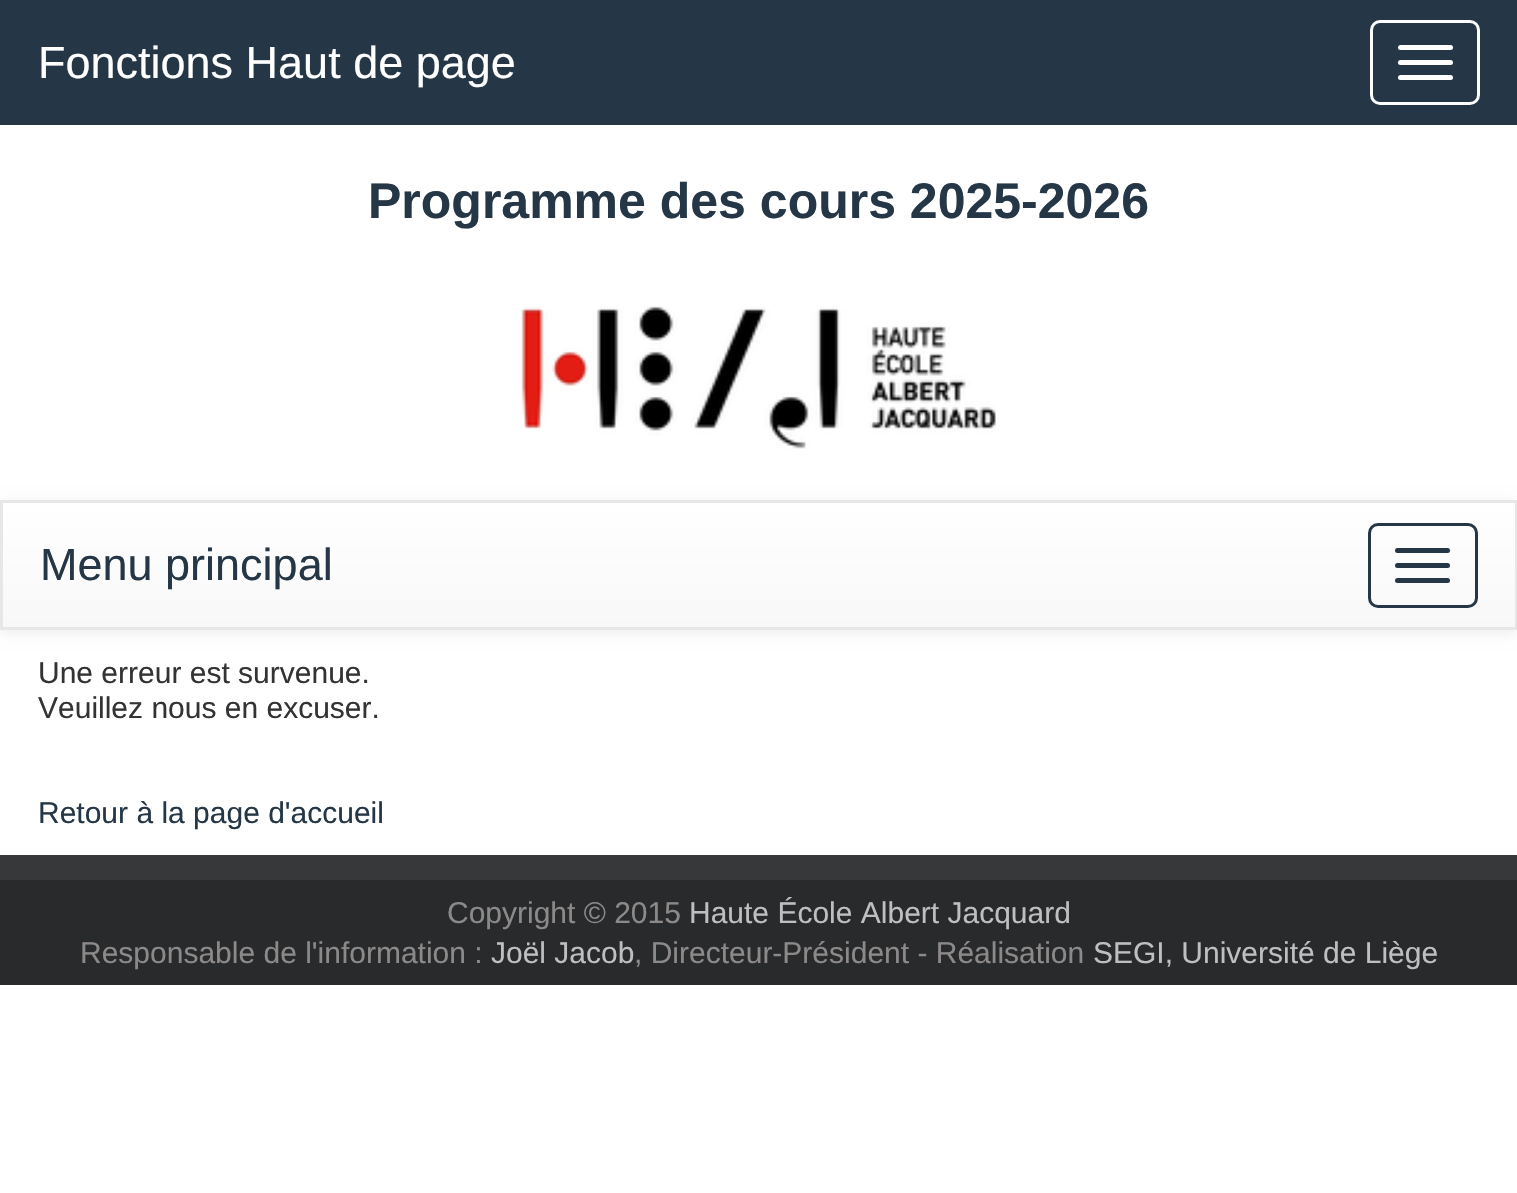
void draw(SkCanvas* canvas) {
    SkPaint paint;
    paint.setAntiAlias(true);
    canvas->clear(0xFFFFFFFF);
    paint.setColor(0xFF253746);
    canvas->drawRect(SkRect::MakeXYWH(0, 0, 1517, 125), paint);
    SkFont font1(fontMgr->matchFamilyStyle("Liberation Sans", SkFontStyle::Normal()), 45);
    font1.setSubpixel(true);
    paint.setColor(0xFFFFFFFF);
    canvas->drawString("Fonctions Haut de page", 38, 78, font1, paint);
    paint.setStyle(SkPaint::kStroke_Style);
    paint.setStrokeWidth(3);
    canvas->drawRoundRect(SkRect::MakeXYWH(1371.5f, 21.5f, 107, 82), 8.5f, 8.5f, paint);
    paint.setStyle(SkPaint::kFill_Style);
    canvas->drawRoundRect(SkRect::MakeXYWH(1398, 45, 55, 5), 2.5f, 2.5f, paint);
    canvas->drawRoundRect(SkRect::MakeXYWH(1398, 60, 55, 5), 2.5f, 2.5f, paint);
    canvas->drawRoundRect(SkRect::MakeXYWH(1398, 75, 55, 5), 2.5f, 2.5f, paint);
    SkFont font2(fontMgr->matchFamilyStyle("Liberation Sans", SkFontStyle::Bold()), 50);
    font2.setSubpixel(true);
    paint.setColor(0xFF253746);
    canvas->drawString("Programme des cours 2025-2026", 368, 218, font2, paint);
    canvas->drawImageRect(SkImages::DeferredFromEncodedData(SkData::MakeFromFileName("img1.png")), SkRect::MakeXYWH(521, 306, 475, 143), SkSamplingOptions());
    paint.setColor(0x12000000);
    paint.setMaskFilter(SkMaskFilter::MakeBlur(kNormal_SkBlurStyle, 6));
    canvas->drawRect(SkRect::MakeXYWH(0, 503, 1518, 130), paint);
    paint.setMaskFilter(nullptr);
    {
        const SkColor colors[] = {0xFFFFFFFF, 0xFFF8F8F8};
        const float stops[] = {0, 1};
        const SkPoint ends[] = {{759, 502}, {759, 628}};
        paint.setShader(SkGradientShader::MakeLinear(ends, colors, stops, 2, SkTileMode::kClamp));
        paint.setAlpha(255);
    }
    canvas->drawRect(SkRect::MakeXYWH(3, 503, 1512, 124), paint);
    paint.setStyle(SkPaint::kStroke_Style);
    paint.setShader(nullptr);
    paint.setColor(0xFFE7E7E7);
    canvas->drawRect(SkRect::MakeXYWH(1.5f, 501.5f, 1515, 127), paint);
    paint.setStyle(SkPaint::kFill_Style);
    paint.setColor(0xFF253746);
    canvas->drawString("Menu principal", 40, 580, font1, paint);
    paint.setStyle(SkPaint::kStroke_Style);
    canvas->drawRoundRect(SkRect::MakeXYWH(1369.5f, 524.5f, 107, 82), 8.5f, 8.5f, paint);
    paint.setStyle(SkPaint::kFill_Style);
    canvas->drawRoundRect(SkRect::MakeXYWH(1395, 548, 55, 5), 2.5f, 2.5f, paint);
    canvas->drawRoundRect(SkRect::MakeXYWH(1395, 563, 55, 5), 2.5f, 2.5f, paint);
    canvas->drawRoundRect(SkRect::MakeXYWH(1395, 578, 55, 5), 2.5f, 2.5f, paint);
    SkFont font3(fontMgr->matchFamilyStyle("Liberation Sans", SkFontStyle::Normal()), 30);
    font3.setSubpixel(true);
    paint.setColor(0xFF333333);
    canvas->drawString("Une erreur est survenue.", 38, 683, font3, paint);
    canvas->drawString("Veuillez nous en excuser.", 38, 718, font3, paint);
    paint.setColor(0xFF253746);
    canvas->drawString("Retour à la page d'accueil", 38, 823, font3, paint);
    paint.setColor(0xFF282A2B);
    canvas->drawRect(SkRect::MakeXYWH(0, 880, 1517, 105), paint);
    paint.setColor(0xFF363839);
    canvas->drawRect(SkRect::MakeXYWH(0, 855, 1517, 25), paint);
    paint.setColor(0xFF8C8989);
    canvas->drawString("Copyright © 2015", 447, 923, font3, paint);
    paint.setColor(0xFFBFBFBF);
    canvas->drawString("Haute École Albert Jacquard", 689, 923, font3, paint);
    paint.setColor(0xFF8C8989);
    canvas->drawString("Responsable de l'information :", 80, 963, font3, paint);
    paint.setColor(0xFFBFBFBF);
    canvas->drawString("Joël Jacob", 491, 963, font3, paint);
    paint.setColor(0xFF8C8989);
    canvas->drawString(", Directeur-Président - Réalisation", 634, 963, font3, paint);
    paint.setColor(0xFFBFBFBF);
    canvas->drawString("SEGI, Université de Liège", 1093, 963, font3, paint);
}
